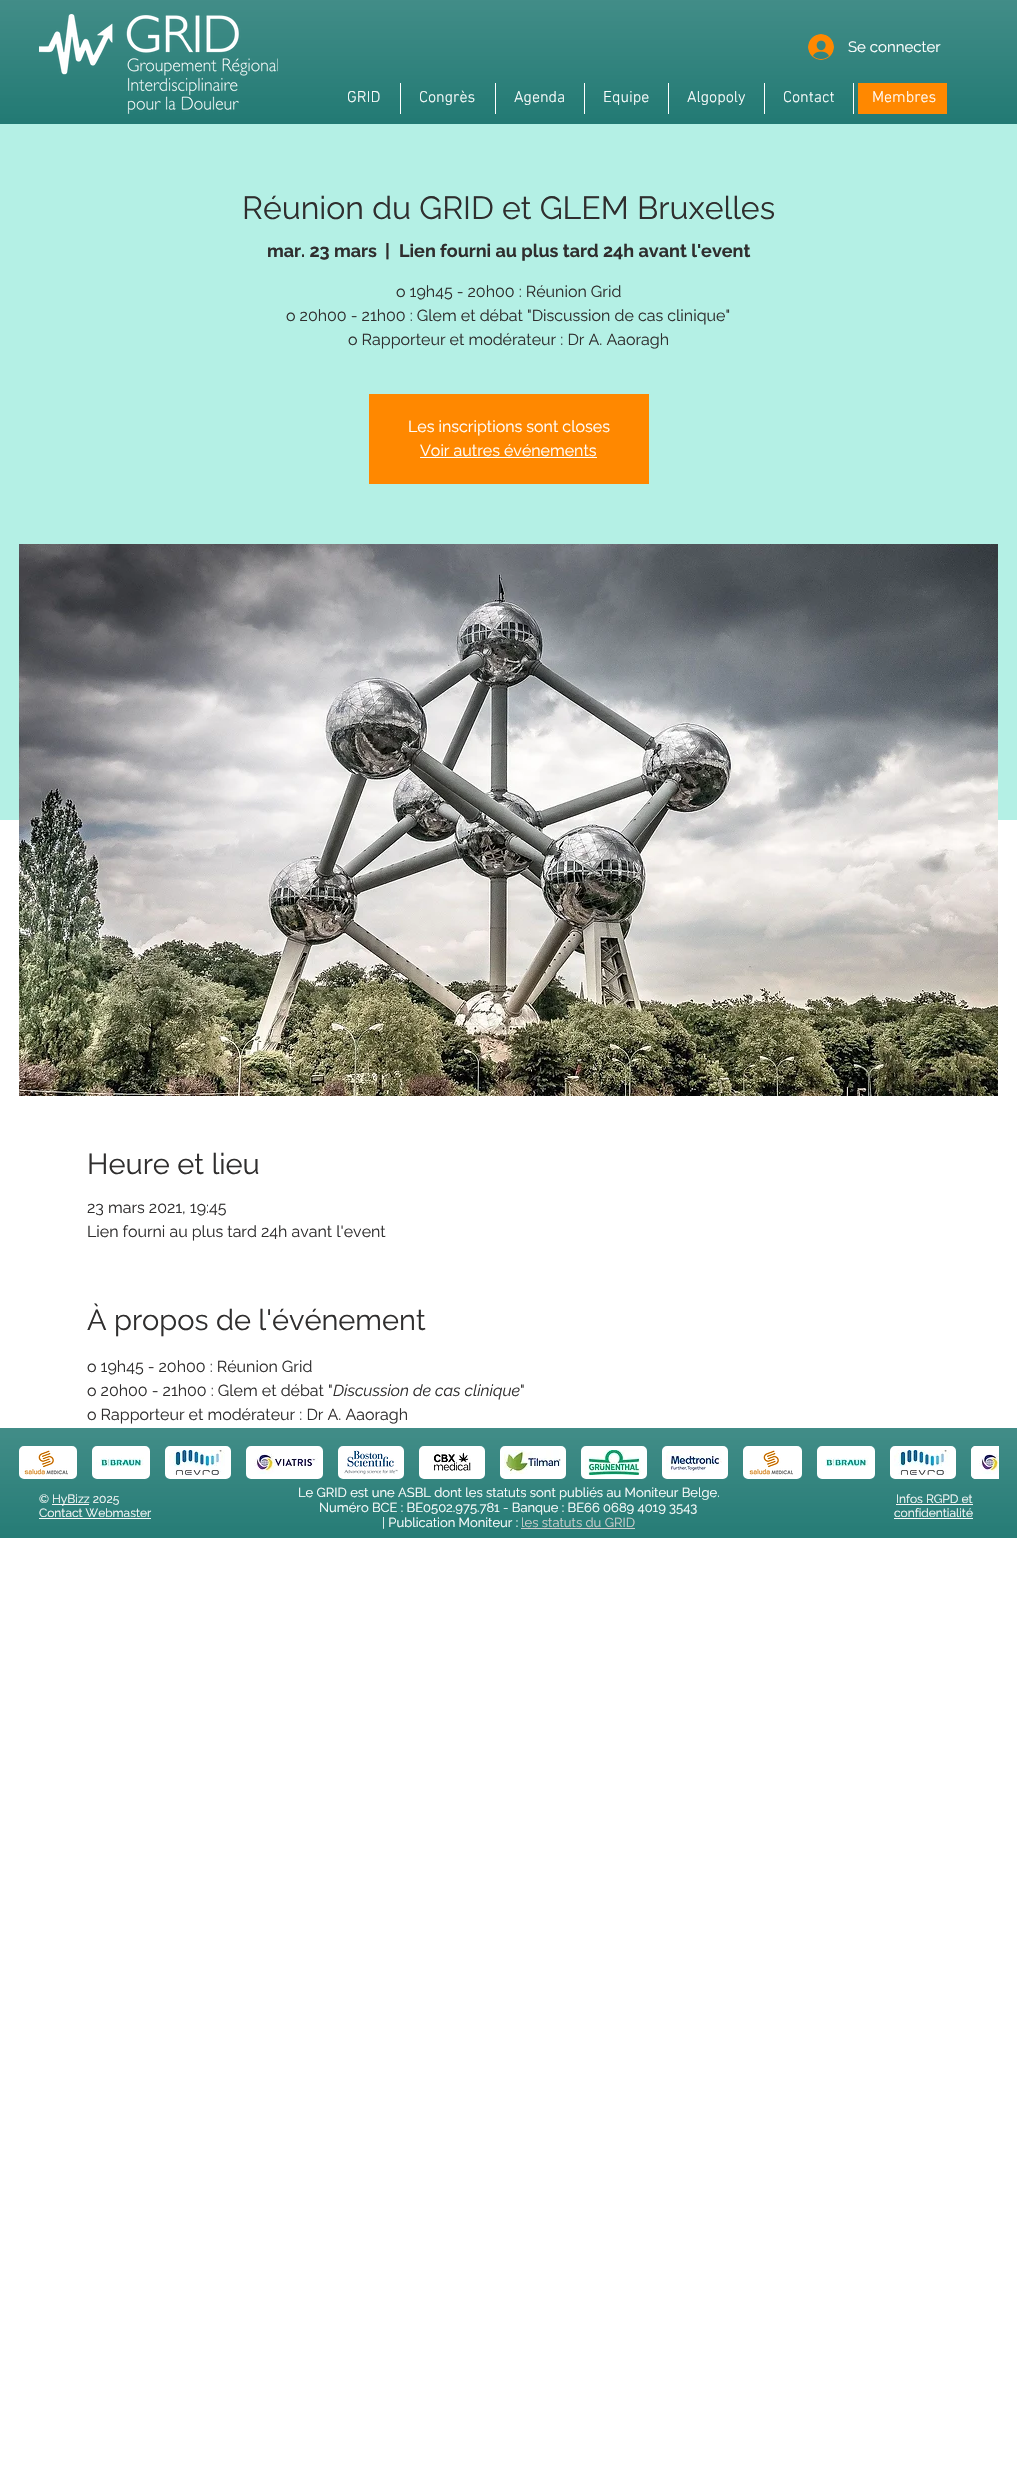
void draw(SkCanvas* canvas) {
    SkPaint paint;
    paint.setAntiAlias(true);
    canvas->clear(0xFFFFFFFF);
    paint.setColor(0xFF00655E);
    canvas->drawRect(SkRect::MakeXYWH(0, 0, 1017, 124), paint);
    canvas->drawImageRect(SkImages::DeferredFromEncodedData(SkData::MakeFromFileName("img1.png")), SkRect::MakeXYWH(0, 0, 1017, 124), SkSamplingOptions());
    canvas->drawImageRect(SkImages::DeferredFromEncodedData(SkData::MakeFromFileName("img2.png")), SkRect::MakeXYWH(39, 14, 239, 100), SkSamplingOptions());
    canvas->drawImageRect(SkImages::DeferredFromEncodedData(SkData::MakeFromFileName("img3.png")), SkRect::MakeXYWH(808, 34, 26, 26), SkSamplingOptions());
    SkFont font1(fontMgr->matchFamilyStyle("Raleway", SkFontStyle::Normal()), 15);
    font1.setSubpixel(true);
    paint.setColor(0xFFFFFFFF);
    canvas->drawString("Se connecter", 848, 52, font1, paint);
    paint.setColor(0xFFFF8800);
    canvas->drawRect(SkRect::MakeXYWH(858, 83, 89, 31), paint);
    SkFont font2(fontMgr->matchFamilyStyle("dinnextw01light", SkFontStyle(300, SkFontStyle::kNormal_Width, SkFontStyle::kUpright_Slant)), 16);
    font2.setSubpixel(true);
    paint.setColor(0xFFFFFFFF);
    canvas->drawString("GRID", 347, 102, font2, paint);
    canvas->drawRect(SkRect::MakeXYWH(400, 83, 1, 31), paint);
    canvas->drawString("Congrès", 419, 102, font2, paint);
    canvas->drawRect(SkRect::MakeXYWH(495, 83, 1, 31), paint);
    canvas->drawString("Agenda", 514, 102, font2, paint);
    canvas->drawRect(SkRect::MakeXYWH(584, 83, 1, 31), paint);
    canvas->drawString("Equipe", 603, 102, font2, paint);
    canvas->drawRect(SkRect::MakeXYWH(668, 83, 1, 31), paint);
    canvas->drawString("Algopoly", 687, 102, font2, paint);
    canvas->drawRect(SkRect::MakeXYWH(764, 83, 1, 31), paint);
    canvas->drawString("Contact", 783, 102, font2, paint);
    canvas->drawRect(SkRect::MakeXYWH(853, 83, 1, 31), paint);
    canvas->drawString("Membres", 872, 102, font2, paint);
    paint.setColor(0xFFB4F0E5);
    canvas->drawRect(SkRect::MakeXYWH(0, 124, 1017, 696), paint);
    SkFont font3(fontMgr->matchFamilyStyle("Raleway", SkFontStyle::Normal()), 32);
    font3.setSubpixel(true);
    paint.setColor(0xFF2F2E2E);
    canvas->drawString("Réunion du GRID et GLEM Bruxelles", 242, 219, font3, paint);
    SkFont font4(fontMgr->matchFamilyStyle("Raleway", SkFontStyle::Bold()), 18);
    font4.setSubpixel(true);
    canvas->drawString("mar. 23 mars", 267, 257, font4, paint);
    canvas->drawString("|", 385, 257, font4, paint);
    canvas->drawString("Lien fourni au plus tard 24h avant l'event", 399, 257, font4, paint);
    SkFont font5(fontMgr->matchFamilyStyle("Raleway", SkFontStyle::Normal()), 16);
    font5.setSubpixel(true);
    canvas->drawString("o 19h45 - 20h00 : Réunion Grid", 396, 297, font5, paint);
    canvas->drawString("o 20h00 - 21h00 : Glem et débat \"Discussion de cas clinique\"", 286, 321, font5, paint);
    canvas->drawString("o Rapporteur et modérateur : Dr A. Aaoragh", 348, 345, font5, paint);
    paint.setColor(0xFFFF8800);
    canvas->drawRect(SkRect::MakeXYWH(369, 394, 280, 90), paint);
    paint.setColor(0xFFFFFFFF);
    canvas->drawString("Les inscriptions sont closes", 408, 432, font5, paint);
    canvas->drawString("Voir autres événements", 420, 456, font5, paint);
    canvas->drawRect(SkRect::MakeXYWH(420, 457, 177, 1), paint);
    canvas->drawImageRect(SkImages::DeferredFromEncodedData(SkData::MakeFromFileName("img4.png")), SkRect::MakeXYWH(19, 544, 979, 552), SkSamplingOptions());
    SkFont font6(fontMgr->matchFamilyStyle("Raleway", SkFontStyle::Normal()), 29);
    font6.setSubpixel(true);
    paint.setColor(0xFF2F2E2E);
    canvas->drawString("Heure et lieu", 87, 1174, font6, paint);
    canvas->drawString("23 mars 2021, 19:45", 87, 1213, font5, paint);
    canvas->drawString("Lien fourni au plus tard 24h avant l'event", 87, 1237, font5, paint);
    canvas->drawString("À propos de l'événement", 87, 1330, font6, paint);
    canvas->drawString("o 19h45 - 20h00 : Réunion Grid", 87, 1372, font5, paint);
    canvas->drawString("o 20h00 - 21h00 : Glem et débat \"", 87, 1396, font5, paint);
    SkFont font7(fontMgr->matchFamilyStyle("Raleway", SkFontStyle::Italic()), 16);
    font7.setSubpixel(true);
    canvas->drawString("Discussion de cas clinique", 333, 1396, font7, paint);
    canvas->drawString("\"", 520, 1396, font5, paint);
    canvas->drawString("o Rapporteur et modérateur : Dr A. Aaoragh", 87, 1420, font5, paint);
    paint.setColor(0xFF00655E);
    canvas->drawRect(SkRect::MakeXYWH(0, 1428, 1017, 110), paint);
    canvas->drawImageRect(SkImages::DeferredFromEncodedData(SkData::MakeFromFileName("img5.png")), SkRect::MakeXYWH(0, 1428, 1017, 110), SkSamplingOptions());
    paint.setColor(0xFFFFFFFF);
    canvas->drawRoundRect(SkRect::MakeXYWH(21, 1448, 54, 29), 3, 3, paint);
    paint.setStyle(SkPaint::kStroke_Style);
    paint.setStrokeWidth(4);
    canvas->drawRoundRect(SkRect::MakeXYWH(21, 1448, 54, 29), 3, 3, paint);
    canvas->drawImageRect(SkImages::DeferredFromEncodedData(SkData::MakeFromFileName("img6.png")), SkRect::MakeXYWH(24, 1450, 44, 25), SkSamplingOptions());
    paint.setStyle(SkPaint::kFill_Style);
    canvas->drawRoundRect(SkRect::MakeXYWH(94, 1448, 54, 29), 3, 3, paint);
    paint.setStyle(SkPaint::kStroke_Style);
    canvas->drawRoundRect(SkRect::MakeXYWH(94, 1448, 54, 29), 3, 3, paint);
    canvas->drawImageRect(SkImages::DeferredFromEncodedData(SkData::MakeFromFileName("img7.png")), SkRect::MakeXYWH(96, 1457, 48, 10), SkSamplingOptions());
    paint.setStyle(SkPaint::kFill_Style);
    canvas->drawRoundRect(SkRect::MakeXYWH(167, 1448, 62, 29), 3, 3, paint);
    paint.setStyle(SkPaint::kStroke_Style);
    canvas->drawRoundRect(SkRect::MakeXYWH(167, 1448, 62, 29), 3, 3, paint);
    canvas->drawImageRect(SkImages::DeferredFromEncodedData(SkData::MakeFromFileName("img8.png")), SkRect::MakeXYWH(169, 1450, 56, 25), SkSamplingOptions());
    paint.setStyle(SkPaint::kFill_Style);
    canvas->drawRoundRect(SkRect::MakeXYWH(248, 1448, 73, 29), 3, 3, paint);
    paint.setStyle(SkPaint::kStroke_Style);
    canvas->drawRoundRect(SkRect::MakeXYWH(248, 1448, 73, 29), 3, 3, paint);
    canvas->drawImageRect(SkImages::DeferredFromEncodedData(SkData::MakeFromFileName("img9.png")), SkRect::MakeXYWH(254, 1450, 64, 24), SkSamplingOptions());
    paint.setStyle(SkPaint::kFill_Style);
    canvas->drawRoundRect(SkRect::MakeXYWH(340, 1448, 62, 29), 3, 3, paint);
    paint.setStyle(SkPaint::kStroke_Style);
    canvas->drawRoundRect(SkRect::MakeXYWH(340, 1448, 62, 29), 3, 3, paint);
    canvas->drawImageRect(SkImages::DeferredFromEncodedData(SkData::MakeFromFileName("img10.png")), SkRect::MakeXYWH(344, 1450, 54, 25), SkSamplingOptions());
    paint.setStyle(SkPaint::kFill_Style);
    canvas->drawRoundRect(SkRect::MakeXYWH(421, 1448, 62, 29), 3, 3, paint);
    paint.setStyle(SkPaint::kStroke_Style);
    canvas->drawRoundRect(SkRect::MakeXYWH(421, 1448, 62, 29), 3, 3, paint);
    canvas->drawImageRect(SkImages::DeferredFromEncodedData(SkData::MakeFromFileName("img11.png")), SkRect::MakeXYWH(434, 1452, 37, 19), SkSamplingOptions());
    paint.setStyle(SkPaint::kFill_Style);
    canvas->drawRoundRect(SkRect::MakeXYWH(502, 1448, 62, 29), 3, 3, paint);
    paint.setStyle(SkPaint::kStroke_Style);
    canvas->drawRoundRect(SkRect::MakeXYWH(502, 1448, 62, 29), 3, 3, paint);
    canvas->drawImageRect(SkImages::DeferredFromEncodedData(SkData::MakeFromFileName("img12.png")), SkRect::MakeXYWH(504, 1450, 57, 24), SkSamplingOptions());
    paint.setStyle(SkPaint::kFill_Style);
    canvas->drawRoundRect(SkRect::MakeXYWH(583, 1448, 62, 29), 3, 3, paint);
    paint.setStyle(SkPaint::kStroke_Style);
    canvas->drawRoundRect(SkRect::MakeXYWH(583, 1448, 62, 29), 3, 3, paint);
    canvas->drawImageRect(SkImages::DeferredFromEncodedData(SkData::MakeFromFileName("img13.png")), SkRect::MakeXYWH(585, 1450, 56, 25), SkSamplingOptions());
    paint.setStyle(SkPaint::kFill_Style);
    canvas->drawRoundRect(SkRect::MakeXYWH(664, 1448, 62, 29), 3, 3, paint);
    paint.setStyle(SkPaint::kStroke_Style);
    canvas->drawRoundRect(SkRect::MakeXYWH(664, 1448, 62, 29), 3, 3, paint);
    canvas->drawImageRect(SkImages::DeferredFromEncodedData(SkData::MakeFromFileName("img14.png")), SkRect::MakeXYWH(666, 1450, 56, 23), SkSamplingOptions());
    paint.setStyle(SkPaint::kFill_Style);
    canvas->drawRoundRect(SkRect::MakeXYWH(745, 1448, 55, 29), 3, 3, paint);
    paint.setStyle(SkPaint::kStroke_Style);
    canvas->drawRoundRect(SkRect::MakeXYWH(745, 1448, 55, 29), 3, 3, paint);
    canvas->drawImageRect(SkImages::DeferredFromEncodedData(SkData::MakeFromFileName("img15.png")), SkRect::MakeXYWH(749, 1450, 44, 25), SkSamplingOptions());
    paint.setStyle(SkPaint::kFill_Style);
    canvas->drawRoundRect(SkRect::MakeXYWH(819, 1448, 54, 29), 3, 3, paint);
    paint.setStyle(SkPaint::kStroke_Style);
    canvas->drawRoundRect(SkRect::MakeXYWH(819, 1448, 54, 29), 3, 3, paint);
    canvas->drawImageRect(SkImages::DeferredFromEncodedData(SkData::MakeFromFileName("img7.png")), SkRect::MakeXYWH(821, 1457, 48, 10), SkSamplingOptions());
    paint.setStyle(SkPaint::kFill_Style);
    canvas->drawRoundRect(SkRect::MakeXYWH(892, 1448, 62, 29), 3, 3, paint);
    paint.setStyle(SkPaint::kStroke_Style);
    canvas->drawRoundRect(SkRect::MakeXYWH(892, 1448, 62, 29), 3, 3, paint);
    canvas->drawImageRect(SkImages::DeferredFromEncodedData(SkData::MakeFromFileName("img16.png")), SkRect::MakeXYWH(894, 1450, 56, 25), SkSamplingOptions());
    paint.setStyle(SkPaint::kFill_Style);
    canvas->drawPath(SkPathBuilder().moveTo(976, 1446).lineTo(999, 1446).lineTo(999, 1479).lineTo(976, 1479).cubicTo(973, 1479, 971, 1477, 971, 1474).lineTo(971, 1451).cubicTo(971, 1448, 973, 1446, 976, 1446).close().detach(), paint);
    canvas->save();
    canvas->clipRect(SkRect::MakeXYWH(19, 1446, 980, 33));
    paint.setStyle(SkPaint::kStroke_Style);
    canvas->drawRoundRect(SkRect::MakeXYWH(973, 1448, 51, 29), 3, 3, paint);
    canvas->restore();
    canvas->drawImageRect(SkImages::DeferredFromEncodedData(SkData::MakeFromFileName("img17.png")), SkRect::MakeXYWH(979, 1450, 20, 24), SkSamplingOptions());
    SkFont font8(fontMgr->matchFamilyStyle("Raleway", SkFontStyle::Normal()), 12);
    font8.setSubpixel(true);
    paint.setStyle(SkPaint::kFill_Style);
    paint.setColor(0xFFF9F9F9);
    canvas->drawString("©", 39, 1503, font8, paint);
    canvas->drawRect(SkRect::MakeXYWH(52, 1504, 37, 1), paint);
    canvas->drawString("HyBizz 2025", 52, 1503, font8, paint);
    canvas->drawString("Contact Webmaster", 39, 1517, font8, paint);
    canvas->drawRect(SkRect::MakeXYWH(39, 1518, 112, 1), paint);
    SkFont font9(fontMgr->matchFamilyStyle("Raleway", SkFontStyle::Normal()), 13);
    font9.setSubpixel(true);
    paint.setColor(0xFFFFFFFF);
    canvas->drawString("Le GRID est une ASBL dont les statuts sont publiés au Moniteur Belge.", 298, 1497, font9, paint);
    canvas->drawString("Numéro BCE : BE0502.975.781 - Banque : BE66 0689 4019 3543", 319, 1512, font9, paint);
    canvas->drawString("| Publication Moniteur :", 382, 1527, font9, paint);
    paint.setColor(0xFFCCCCCC);
    canvas->drawString("les statuts du GRID", 521, 1527, font9, paint);
    canvas->drawRect(SkRect::MakeXYWH(521, 1528, 114, 1), paint);
    paint.setColor(0xFFF9F9F9);
    canvas->drawString("Infos RGPD et", 896, 1503, font8, paint);
    canvas->drawRect(SkRect::MakeXYWH(896, 1504, 77, 1), paint);
    canvas->drawString("confidentialité", 894, 1517, font8, paint);
    canvas->drawRect(SkRect::MakeXYWH(894, 1518, 79, 1), paint);
}
